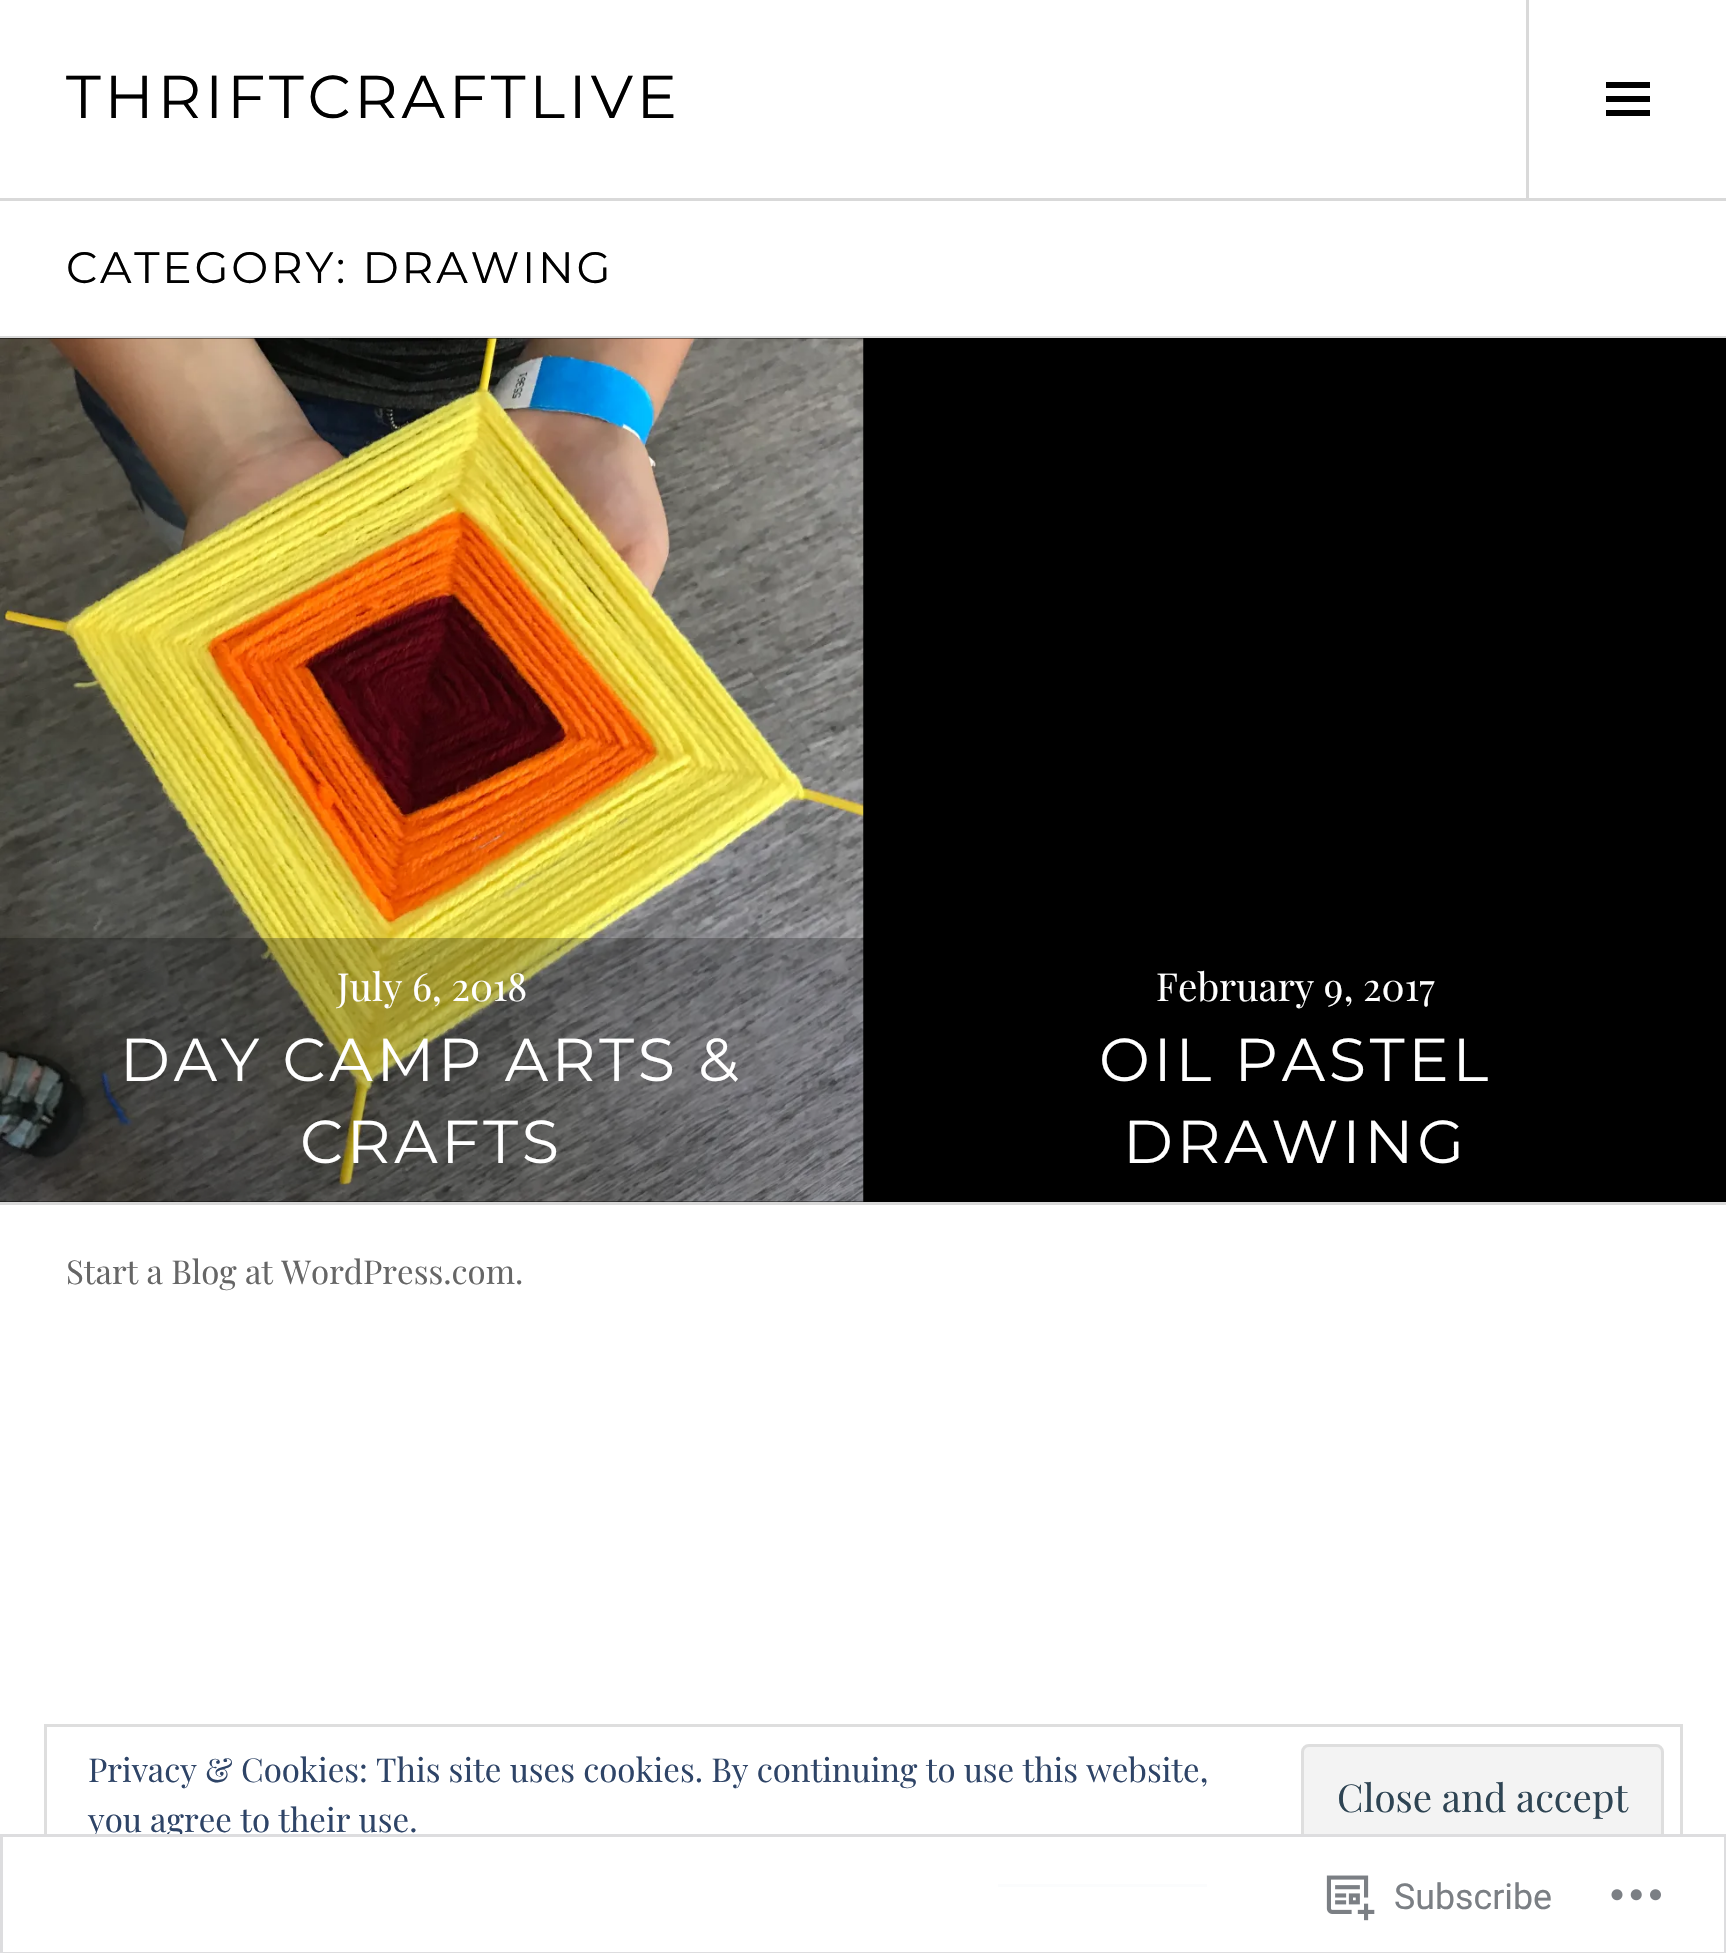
void draw(SkCanvas* canvas) {
    SkPaint paint;
    paint.setAntiAlias(true);
    auto spacedText = [&](const char* s, float x, float y, const SkFont& font, const SkPaint& ink, float letter, float word) {
        std::vector<SkGlyphID> glyphs(font.countText(s, strlen(s), SkTextEncoding::kUTF8));
        std::vector<float> xs(glyphs.size());
        font.textToGlyphs(s, strlen(s), SkTextEncoding::kUTF8, glyphs);
        font.getXPos(glyphs, xs, x);
        float extra = 0;
        for (size_t i = 0; i < glyphs.size(); i++) {
            xs[i] += extra;
            extra += letter + word * (glyphs[i] == font.unicharToGlyph(' '));
        }
        canvas->drawTextBlob(SkTextBlob::MakeFromPosHGlyphs(glyphs, xs, y, font), 0, 0, ink);
    };
    canvas->clear(0xFFFFFFFF);
    paint.setColor(0xFFD9D9D9);
    canvas->drawRect(SkRect::MakeXYWH(0, 198, 1726, 3), paint);
    SkFont font1(fontMgr->matchFamilyStyle("Montserrat", SkFontStyle::Normal()), 60.5f);
    font1.setSubpixel(true);
    paint.setColor(0xFF000000);
    spacedText("THRIFTCRAFTLIVE", 66, 118, font1, paint, 3.75f, 0);
    paint.setColor(0xFFD9D9D9);
    canvas->drawRect(SkRect::MakeXYWH(1526, 0, 3, 198), paint);
    paint.setColor(0xFF000000);
    canvas->drawPath(SkPathBuilder().moveTo(1606, 116).lineTo(1606, 110).lineTo(1650, 110).lineTo(1650, 116).close().moveTo(1606, 82).lineTo(1650, 82).lineTo(1650, 88).lineTo(1606, 88).close().moveTo(1606, 102).lineTo(1606, 96).lineTo(1650, 96).lineTo(1650, 102).close().detach(), paint);
    paint.setColor(0xFFD9D9D9);
    canvas->drawRect(SkRect::MakeXYWH(0, 336, 1726, 2), paint);
    SkFont font2(fontMgr->matchFamilyStyle("Montserrat", SkFontStyle::Normal()), 44);
    font2.setSubpixel(true);
    paint.setColor(0xFF000000);
    spacedText("CATEGORY: DRAWING", 66, 283, font2, paint, 2.75f, 0);
    canvas->drawRect(SkRect::MakeXYWH(0, 338, 1726, 864), paint);
    canvas->drawImageRect(SkImages::DeferredFromEncodedData(SkData::MakeFromFileName("img1.png")), SkRect::MakeXYWH(0, 338, 864, 864), SkSamplingOptions());
    paint.setColor(0x40000000);
    canvas->drawRect(SkRect::MakeXYWH(0, 938, 864, 264), paint);
    SkFont font3(fontMgr->matchFamilyStyle("Playfair Display", SkFontStyle::Normal()), 38.5f);
    font3.setSubpixel(true);
    paint.setColor(0xFFFFFFFF);
    canvas->drawString("July 6, 2018", 337, 1001, font3, paint);
    spacedText("DAY CAMP ARTS &", 120, 1081, font1, paint, 3.75f, 0);
    spacedText("CRAFTS", 300, 1163, font1, paint, 3.75f, 0);
    canvas->drawString("February 9, 2017", 1156, 1001, font3, paint);
    spacedText("OIL PASTEL", 1099, 1081, font1, paint, 3.75f, 0);
    spacedText("DRAWING", 1123, 1163, font1, paint, 3.75f, 0);
    paint.setColor(0xFFD9D9D9);
    canvas->drawRect(SkRect::MakeXYWH(0, 1202, 1726, 3), paint);
    SkFont font4(fontMgr->matchFamilyStyle("Playfair Display", SkFontStyle::Normal()), 33);
    font4.setSubpixel(true);
    paint.setColor(0xFF666666);
    canvas->drawString("Start a Blog at WordPress.com.", 66, 1284, font4, paint);
    paint.setStyle(SkPaint::kStroke_Style);
    paint.setStrokeWidth(3);
    paint.setColor(0xFFDEDEDE);
    canvas->drawRect(SkRect::MakeXYWH(45.5f, 1725.5f, 1636, 184), paint);
    paint.setStyle(SkPaint::kFill_Style);
    paint.setColor(0xFF2E4467);
    canvas->drawString("Privacy & Cookies: This site uses cookies. By continuing to use this website,", 88, 1782, font4, paint);
    paint.setColor(0xFFF3F3F3);
    canvas->drawRoundRect(SkRect::MakeXYWH(1302.5f, 1745.5f, 360, 104), 6.5f, 6.5f, paint);
    paint.setStyle(SkPaint::kStroke_Style);
    paint.setColor(0xFFDEDEDE);
    canvas->drawRoundRect(SkRect::MakeXYWH(1302.5f, 1745.5f, 360, 104), 6.5f, 6.5f, paint);
    paint.setStyle(SkPaint::kFill_Style);
    paint.setColor(0xFF2E4453);
    canvas->drawString("Close and accept", 1337, 1812, font3, paint);
    paint.setColor(0xFF2E4467);
    canvas->drawString("you agree to their use.", 88, 1832, font4, paint);
    canvas->drawRect(SkRect::MakeXYWH(998, 1884, 209, 3), paint);
    paint.setColor(0xFFD9D9D9);
    canvas->drawRect(SkRect::MakeXYWH(998, 1889, 209, 3), paint);
    paint.setColor(0xFAFFFFFF);
    canvas->drawRect(SkRect::MakeXYWH(44, 1834, 1639, 77), paint);
    paint.setStyle(SkPaint::kStroke_Style);
    paint.setColor(0xFADCDCDE);
    canvas->drawRect(SkRect::MakeXYWH(1.5f, 1835.5f, 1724, 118), paint);
    canvas->drawImageRect(SkImages::DeferredFromEncodedData(SkData::MakeFromFileName("img2.png")), SkRect::MakeXYWH(1326, 1875, 49, 46), SkSamplingOptions());
    SkFont font5(fontMgr->matchFamilyStyle("Roboto", SkFontStyle::Normal()), 35.75f);
    font5.setSubpixel(true);
    paint.setStyle(SkPaint::kFill_Style);
    paint.setColor(0xFF7B7F84);
    canvas->drawString("Subscribe", 1394, 1909, font5, paint);
    canvas->drawImageRect(SkImages::DeferredFromEncodedData(SkData::MakeFromFileName("img3.png")), SkRect::MakeXYWH(1611, 1889, 50, 12), SkSamplingOptions());
}
